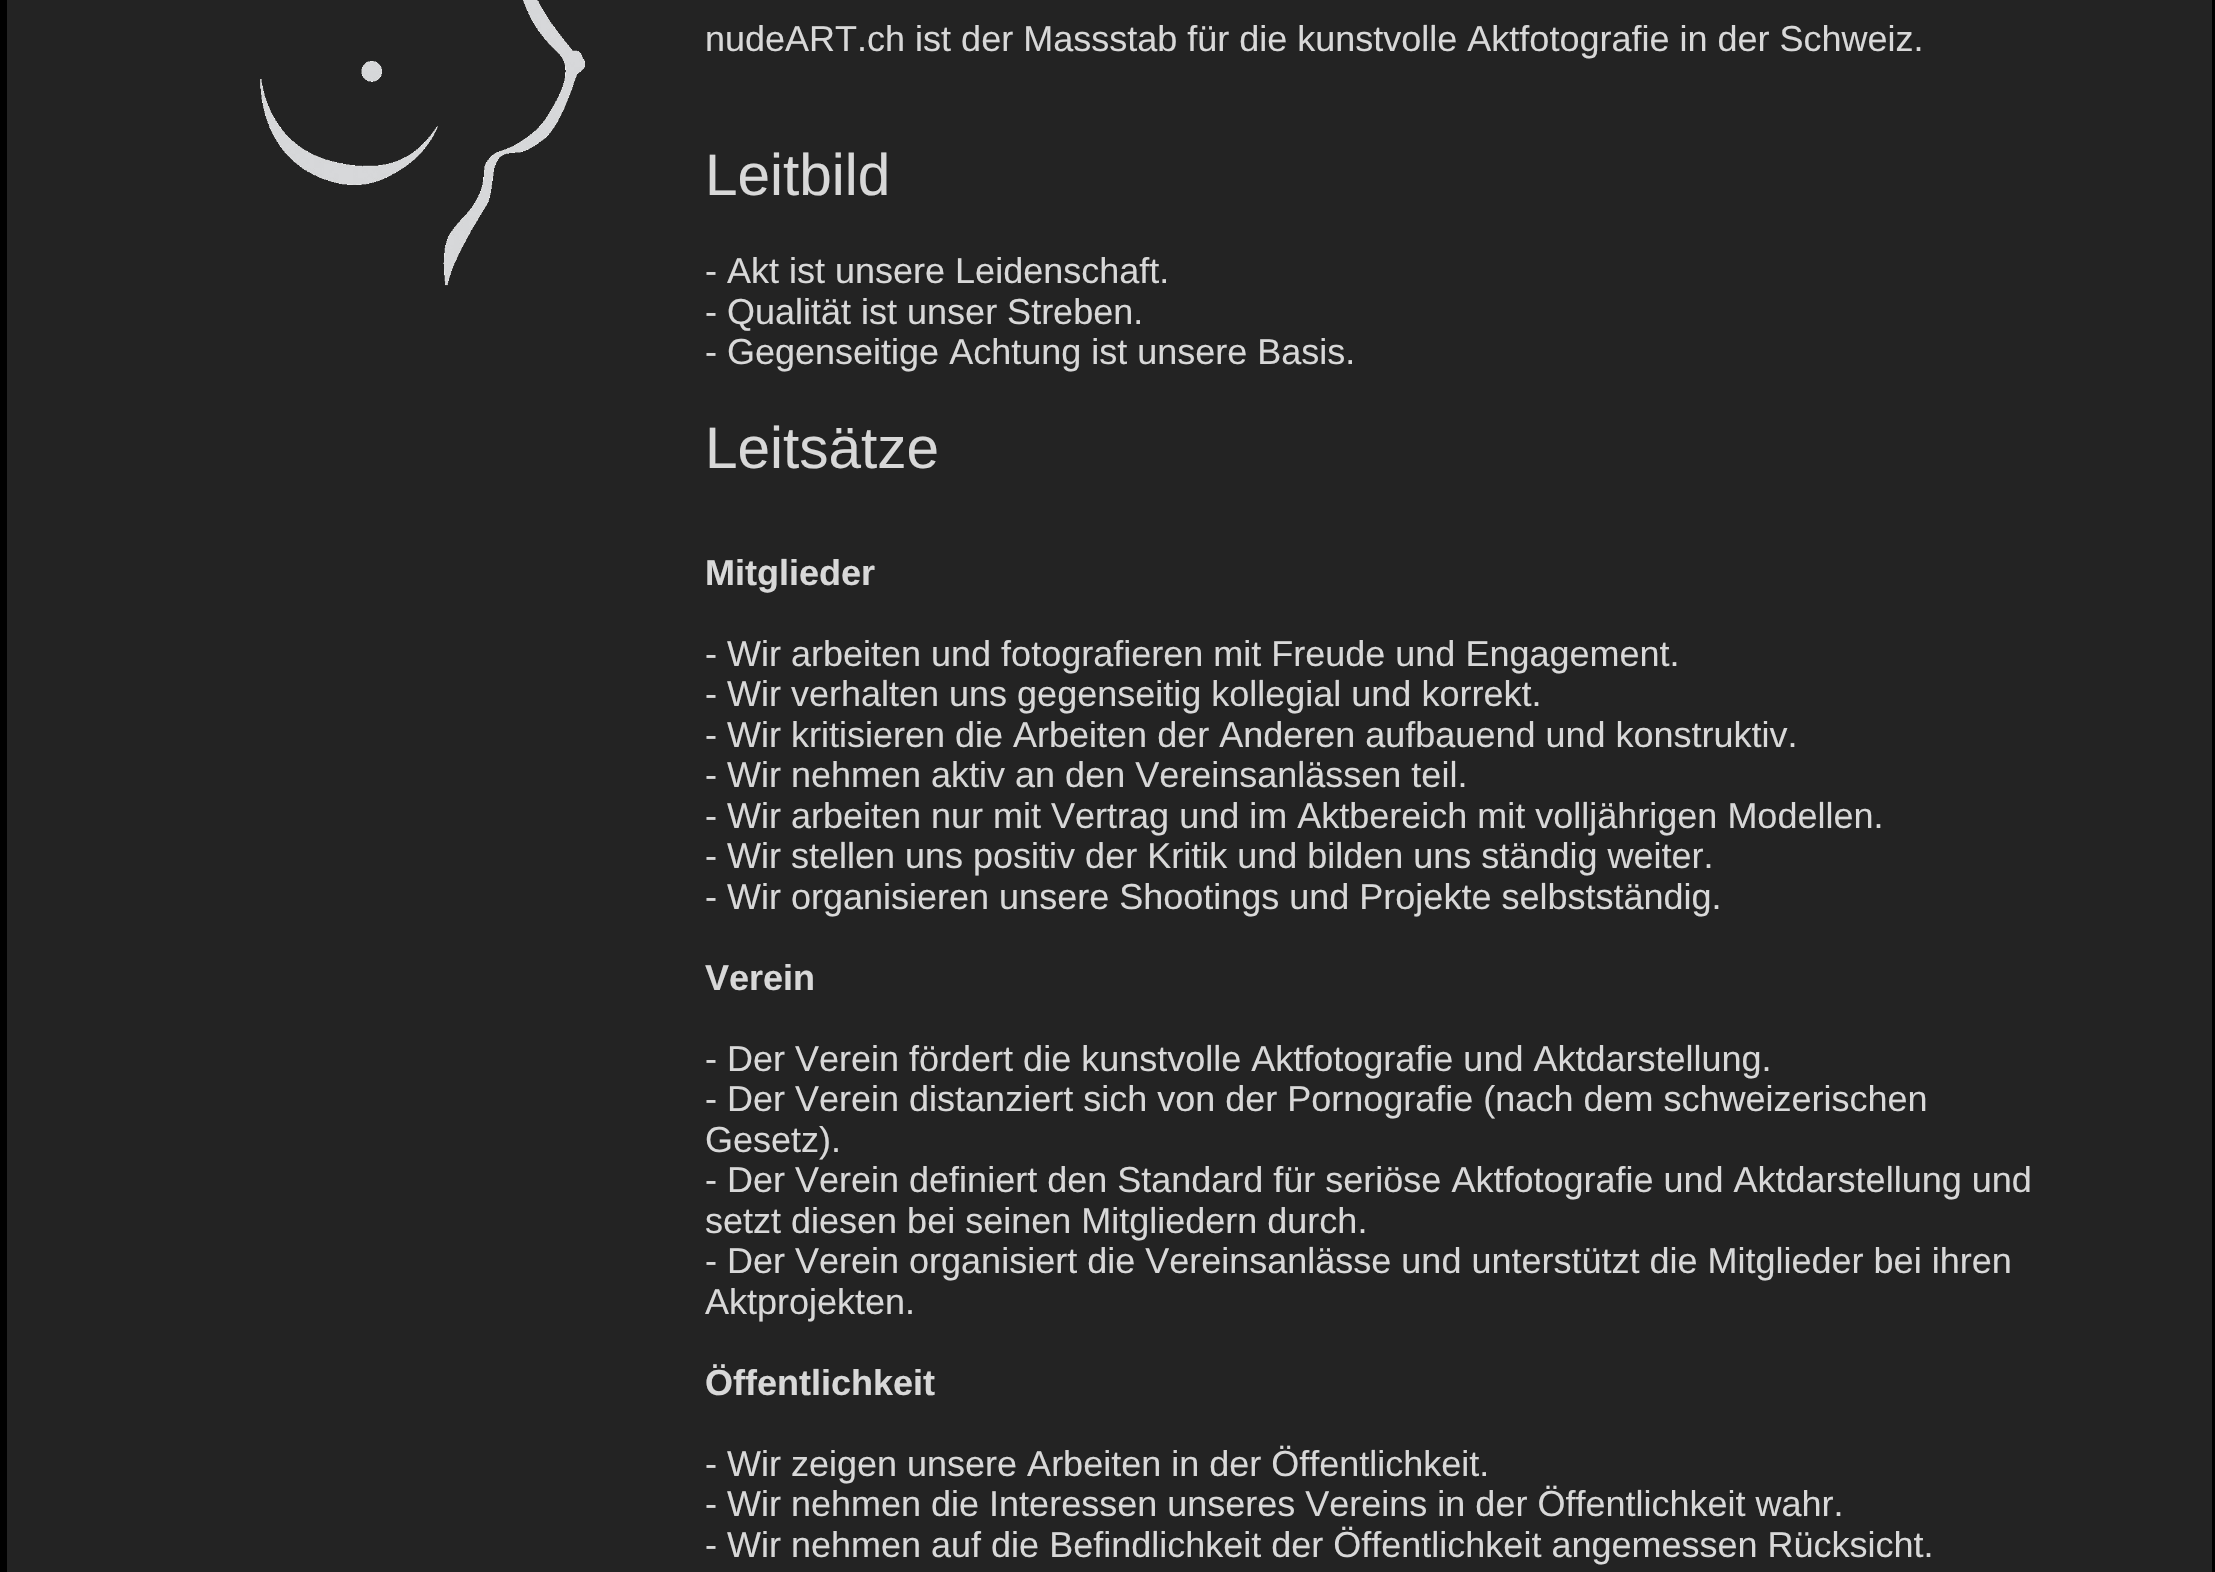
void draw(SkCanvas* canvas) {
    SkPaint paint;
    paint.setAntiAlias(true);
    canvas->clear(0xFF000000);
    paint.setColor(0xFF232323);
    canvas->drawRect(SkRect::MakeXYWH(7, 0, 2205, 1572), paint);
    canvas->drawImageRect(SkImages::DeferredFromEncodedData(SkData::MakeFromFileName("img1.png")), SkRect::MakeXYWH(260, 0, 325, 286), SkSamplingOptions());
    SkFont font1(fontMgr->matchFamilyStyle("Liberation Sans", SkFontStyle::Normal()), 36);
    font1.setSubpixel(true);
    paint.setColor(0xFFD8D8D8);
    canvas->drawString("nudeART.ch ist der Massstab für die kunstvolle Aktfotografie in der Schweiz.", 705, 51, font1, paint);
    SkFont font2(fontMgr->matchFamilyStyle("Liberation Sans", SkFontStyle::Normal()), 58.5f);
    font2.setSubpixel(true);
    canvas->drawString("Leitbild", 705, 195, font2, paint);
    canvas->drawString("- Akt ist unsere Leidenschaft.", 705, 283, font1, paint);
    canvas->drawString("- Qualität ist unser Streben.", 705, 324, font1, paint);
    canvas->drawString("- Gegenseitige Achtung ist unsere Basis.", 705, 364, font1, paint);
    canvas->drawString("Leitsätze", 705, 468, font2, paint);
    SkFont font3(fontMgr->matchFamilyStyle("Liberation Sans", SkFontStyle::Bold()), 36);
    font3.setSubpixel(true);
    canvas->drawString("Mitglieder", 705, 585, font3, paint);
    canvas->drawString("- Wir arbeiten und fotografieren mit Freude und Engagement.", 705, 666, font1, paint);
    canvas->drawString("- Wir verhalten uns gegenseitig kollegial und korrekt.", 705, 706, font1, paint);
    canvas->drawString("- Wir kritisieren die Arbeiten der Anderen aufbauend und konstruktiv.", 705, 747, font1, paint);
    canvas->drawString("- Wir nehmen aktiv an den Vereinsanlässen teil.", 705, 787, font1, paint);
    canvas->drawString("- Wir arbeiten nur mit Vertrag und im Aktbereich mit volljährigen Modellen.", 705, 828, font1, paint);
    canvas->drawString("- Wir stellen uns positiv der Kritik und bilden uns ständig weiter.", 705, 868, font1, paint);
    canvas->drawString("- Wir organisieren unsere Shootings und Projekte selbstständig.", 705, 909, font1, paint);
    canvas->drawString("Verein", 705, 990, font3, paint);
    canvas->drawString("- Der Verein fördert die kunstvolle Aktfotografie und Aktdarstellung.", 705, 1071, font1, paint);
    canvas->drawString("- Der Verein distanziert sich von der Pornografie (nach dem schweizerischen", 705, 1111, font1, paint);
    canvas->drawString("Gesetz).", 705, 1152, font1, paint);
    canvas->drawString("- Der Verein definiert den Standard für seriöse Aktfotografie und Aktdarstellung und", 705, 1192, font1, paint);
    canvas->drawString("setzt diesen bei seinen Mitgliedern durch.", 705, 1233, font1, paint);
    canvas->drawString("- Der Verein organisiert die Vereinsanlässe und unterstützt die Mitglieder bei ihren", 705, 1273, font1, paint);
    canvas->drawString("Aktprojekten.", 705, 1314, font1, paint);
    canvas->drawString("Öffentlichkeit", 705, 1395, font3, paint);
    canvas->drawString("- Wir zeigen unsere Arbeiten in der Öffentlichkeit.", 705, 1476, font1, paint);
    canvas->drawString("- Wir nehmen die Interessen unseres Vereins in der Öffentlichkeit wahr.", 705, 1516, font1, paint);
    canvas->drawString("- Wir nehmen auf die Befindlichkeit der Öffentlichkeit angemessen Rücksicht.", 705, 1557, font1, paint);
}
